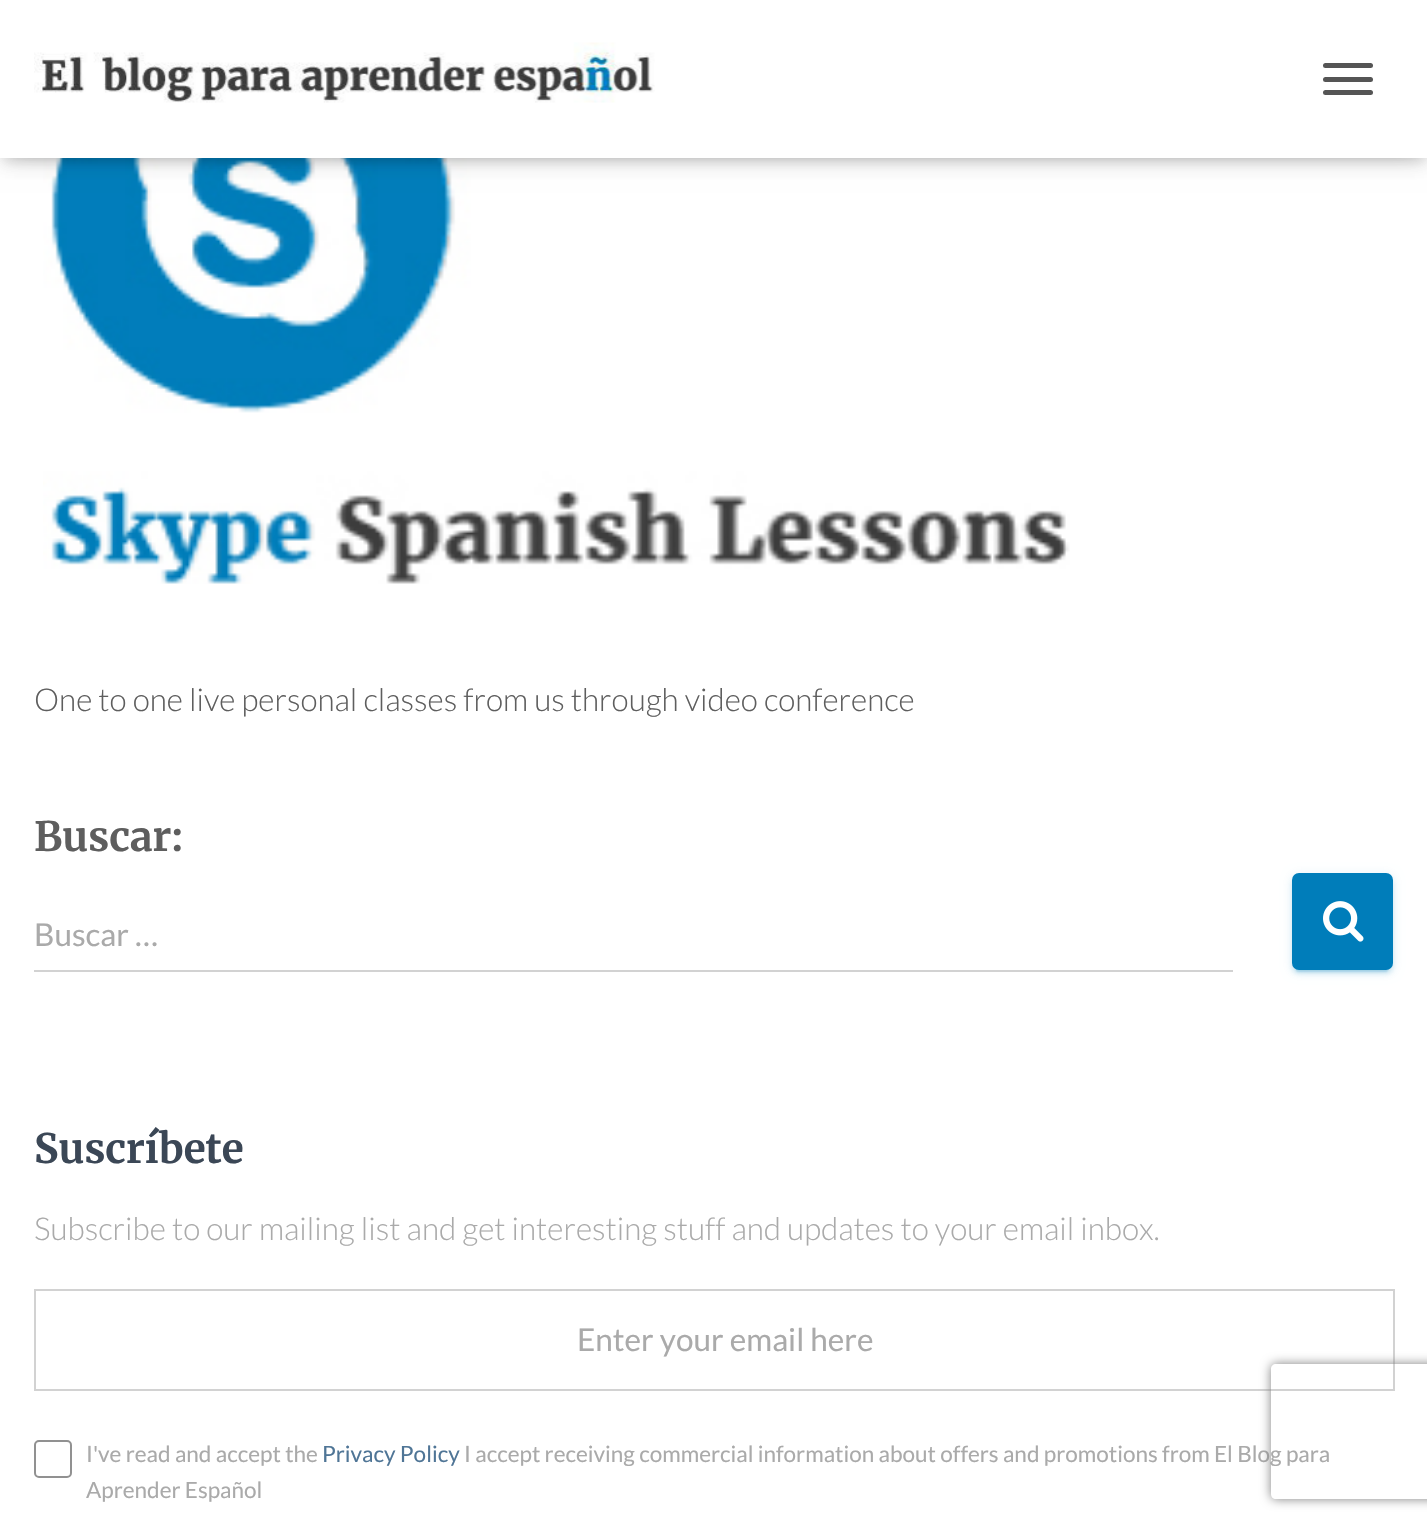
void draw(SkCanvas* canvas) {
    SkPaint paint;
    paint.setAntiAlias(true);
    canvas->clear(0xFFFFFFFF);
    canvas->drawImageRect(SkImages::DeferredFromEncodedData(SkData::MakeFromFileName("img2.png")), SkRect::MakeXYWH(43, 158, 1027, 426), SkSamplingOptions());
    paint.setColor(0x1A000000);
    paint.setMaskFilter(SkMaskFilter::MakeBlur(kNormal_SkBlurStyle, 5.5f));
    canvas->drawRect(SkRect::MakeXYWH(5, 14, 1419, 148), paint);
    paint.setMaskFilter(nullptr);
    paint.setColor(0x1F000000);
    paint.setMaskFilter(SkMaskFilter::MakeBlur(kNormal_SkBlurStyle, 11));
    canvas->drawRect(SkRect::MakeXYWH(0, 2, 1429, 158), paint);
    paint.setMaskFilter(nullptr);
    paint.setColor(0x6B000000);
    paint.setMaskFilter(SkMaskFilter::MakeBlur(kNormal_SkBlurStyle, 11));
    canvas->drawRect(SkRect::MakeXYWH(14, 16, 1401, 130), paint);
    paint.setMaskFilter(nullptr);
    paint.setColor(0xFFFFFFFF);
    canvas->drawRect(SkRect::MakeXYWH(0, 0, 1427, 158), paint);
    canvas->drawImageRect(SkImages::DeferredFromEncodedData(SkData::MakeFromFileName("img1.png")), SkRect::MakeXYWH(34, 42, 621, 61), SkSamplingOptions());
    paint.setColor(0xFF555555);
    canvas->drawRoundRect(SkRect::MakeXYWH(1323, 63, 50, 5), 2.5f, 2.5f, paint);
    canvas->drawRoundRect(SkRect::MakeXYWH(1323, 77, 50, 5), 2.5f, 2.5f, paint);
    canvas->drawRoundRect(SkRect::MakeXYWH(1323, 90, 50, 5), 2.5f, 2.5f, paint);
    SkFont font1(fontMgr->matchFamilyStyle("Lato", SkFontStyle(300, SkFontStyle::kNormal_Width, SkFontStyle::kUpright_Slant)), 31.5f);
    font1.setSubpixel(true);
    paint.setColor(0xFF5E5E5E);
    canvas->drawString("One to one live personal classes from us through video conference", 34, 711, font1, paint);
    SkFont font2(fontMgr->matchFamilyStyle("Merriweather", SkFontStyle::Bold()), 40.5f);
    font2.setSubpixel(true);
    canvas->drawString("Buscar:", 34, 851, font2, paint);
    SkFont font3(fontMgr->matchFamilyStyle("Lato", SkFontStyle::Normal()), 31.5f);
    font3.setSubpixel(true);
    paint.setColor(0xFFAAAAAA);
    canvas->drawString("Buscar …", 34, 946, font3, paint);
    paint.setColor(0xFFD2D2D2);
    canvas->drawRect(SkRect::MakeXYWH(34, 970, 1199, 2), paint);
    paint.setColor(0x1F007DBA);
    paint.setMaskFilter(SkMaskFilter::MakeBlur(kNormal_SkBlurStyle, 5.5f));
    canvas->drawRoundRect(SkRect::MakeXYWH(1292, 875, 101, 97), 7, 7, paint);
    paint.setMaskFilter(nullptr);
    paint.setColor(0x33007DBA);
    paint.setMaskFilter(SkMaskFilter::MakeBlur(kNormal_SkBlurStyle, 1));
    canvas->drawRoundRect(SkRect::MakeXYWH(1296, 884, 92, 88), 2, 2, paint);
    paint.setMaskFilter(nullptr);
    paint.setColor(0x24007DBA);
    paint.setMaskFilter(SkMaskFilter::MakeBlur(kNormal_SkBlurStyle, 2));
    canvas->drawRoundRect(SkRect::MakeXYWH(1292, 878, 101, 96), 7, 7, paint);
    paint.setMaskFilter(nullptr);
    paint.setColor(0xFF007DBA);
    canvas->drawRoundRect(SkRect::MakeXYWH(1292, 873, 101, 97), 7, 7, paint);
    canvas->drawImageRect(SkImages::DeferredFromEncodedData(SkData::MakeFromFileName("img3.png")), SkRect::MakeXYWH(1323, 901, 41, 41), SkSamplingOptions());
    paint.setColor(0xFF3B4756);
    canvas->drawString("Suscríbete", 34, 1163, font2, paint);
    paint.setColor(0xFFAAAAAA);
    canvas->drawString("Subscribe to our mailing list and get interesting stuff and updates to your email inbox.", 34, 1240, font1, paint);
    paint.setStyle(SkPaint::kStroke_Style);
    paint.setStrokeWidth(2);
    paint.setColor(0xFFD2D2D2);
    canvas->drawRect(SkRect::MakeXYWH(35, 1290, 1359, 100), paint);
    paint.setStyle(SkPaint::kFill_Style);
    paint.setColor(0xFFAAAAAA);
    canvas->drawString("Enter your email here", 577, 1351, font3, paint);
    paint.setStyle(SkPaint::kStroke_Style);
    paint.setColor(0xFF919191);
    canvas->drawRoundRect(SkRect::MakeXYWH(35, 1441, 36, 36), 4, 4, paint);
    SkFont font4(fontMgr->matchFamilyStyle("Lato", SkFontStyle::Normal()), 22.5f);
    font4.setSubpixel(true);
    paint.setStyle(SkPaint::kFill_Style);
    paint.setColor(0xFFAAAAAA);
    canvas->drawString("I've read and accept the", 86, 1462, font4, paint);
    paint.setColor(0xFF4F7596);
    canvas->drawString("Privacy Policy", 322, 1462, font4, paint);
    paint.setColor(0xFFAAAAAA);
    canvas->drawString("I accept receiving commercial information about offers and promotions from El Blog para", 464, 1462, font4, paint);
    canvas->drawString("Aprender Español", 86, 1498, font4, paint);
    canvas->save();
    canvas->clipPath(SkPathBuilder(SkPathFillType::kEvenOdd).moveTo(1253, 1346).lineTo(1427, 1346).lineTo(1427, 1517).lineTo(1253, 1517).close().moveTo(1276, 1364).lineTo(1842, 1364).cubicTo(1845, 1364, 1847, 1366, 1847, 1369).lineTo(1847, 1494).cubicTo(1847, 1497, 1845, 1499, 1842, 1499).lineTo(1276, 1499).cubicTo(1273, 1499, 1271, 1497, 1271, 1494).lineTo(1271, 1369).cubicTo(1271, 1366, 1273, 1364, 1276, 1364).close().detach(), true);
    paint.setColor(0xFF808080);
    paint.setMaskFilter(SkMaskFilter::MakeBlur(kNormal_SkBlurStyle, 5.5f));
    canvas->drawRoundRect(SkRect::MakeXYWH(1271, 1364, 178, 135), 5, 5, paint);
    paint.setMaskFilter(nullptr);
    canvas->restore();
}
